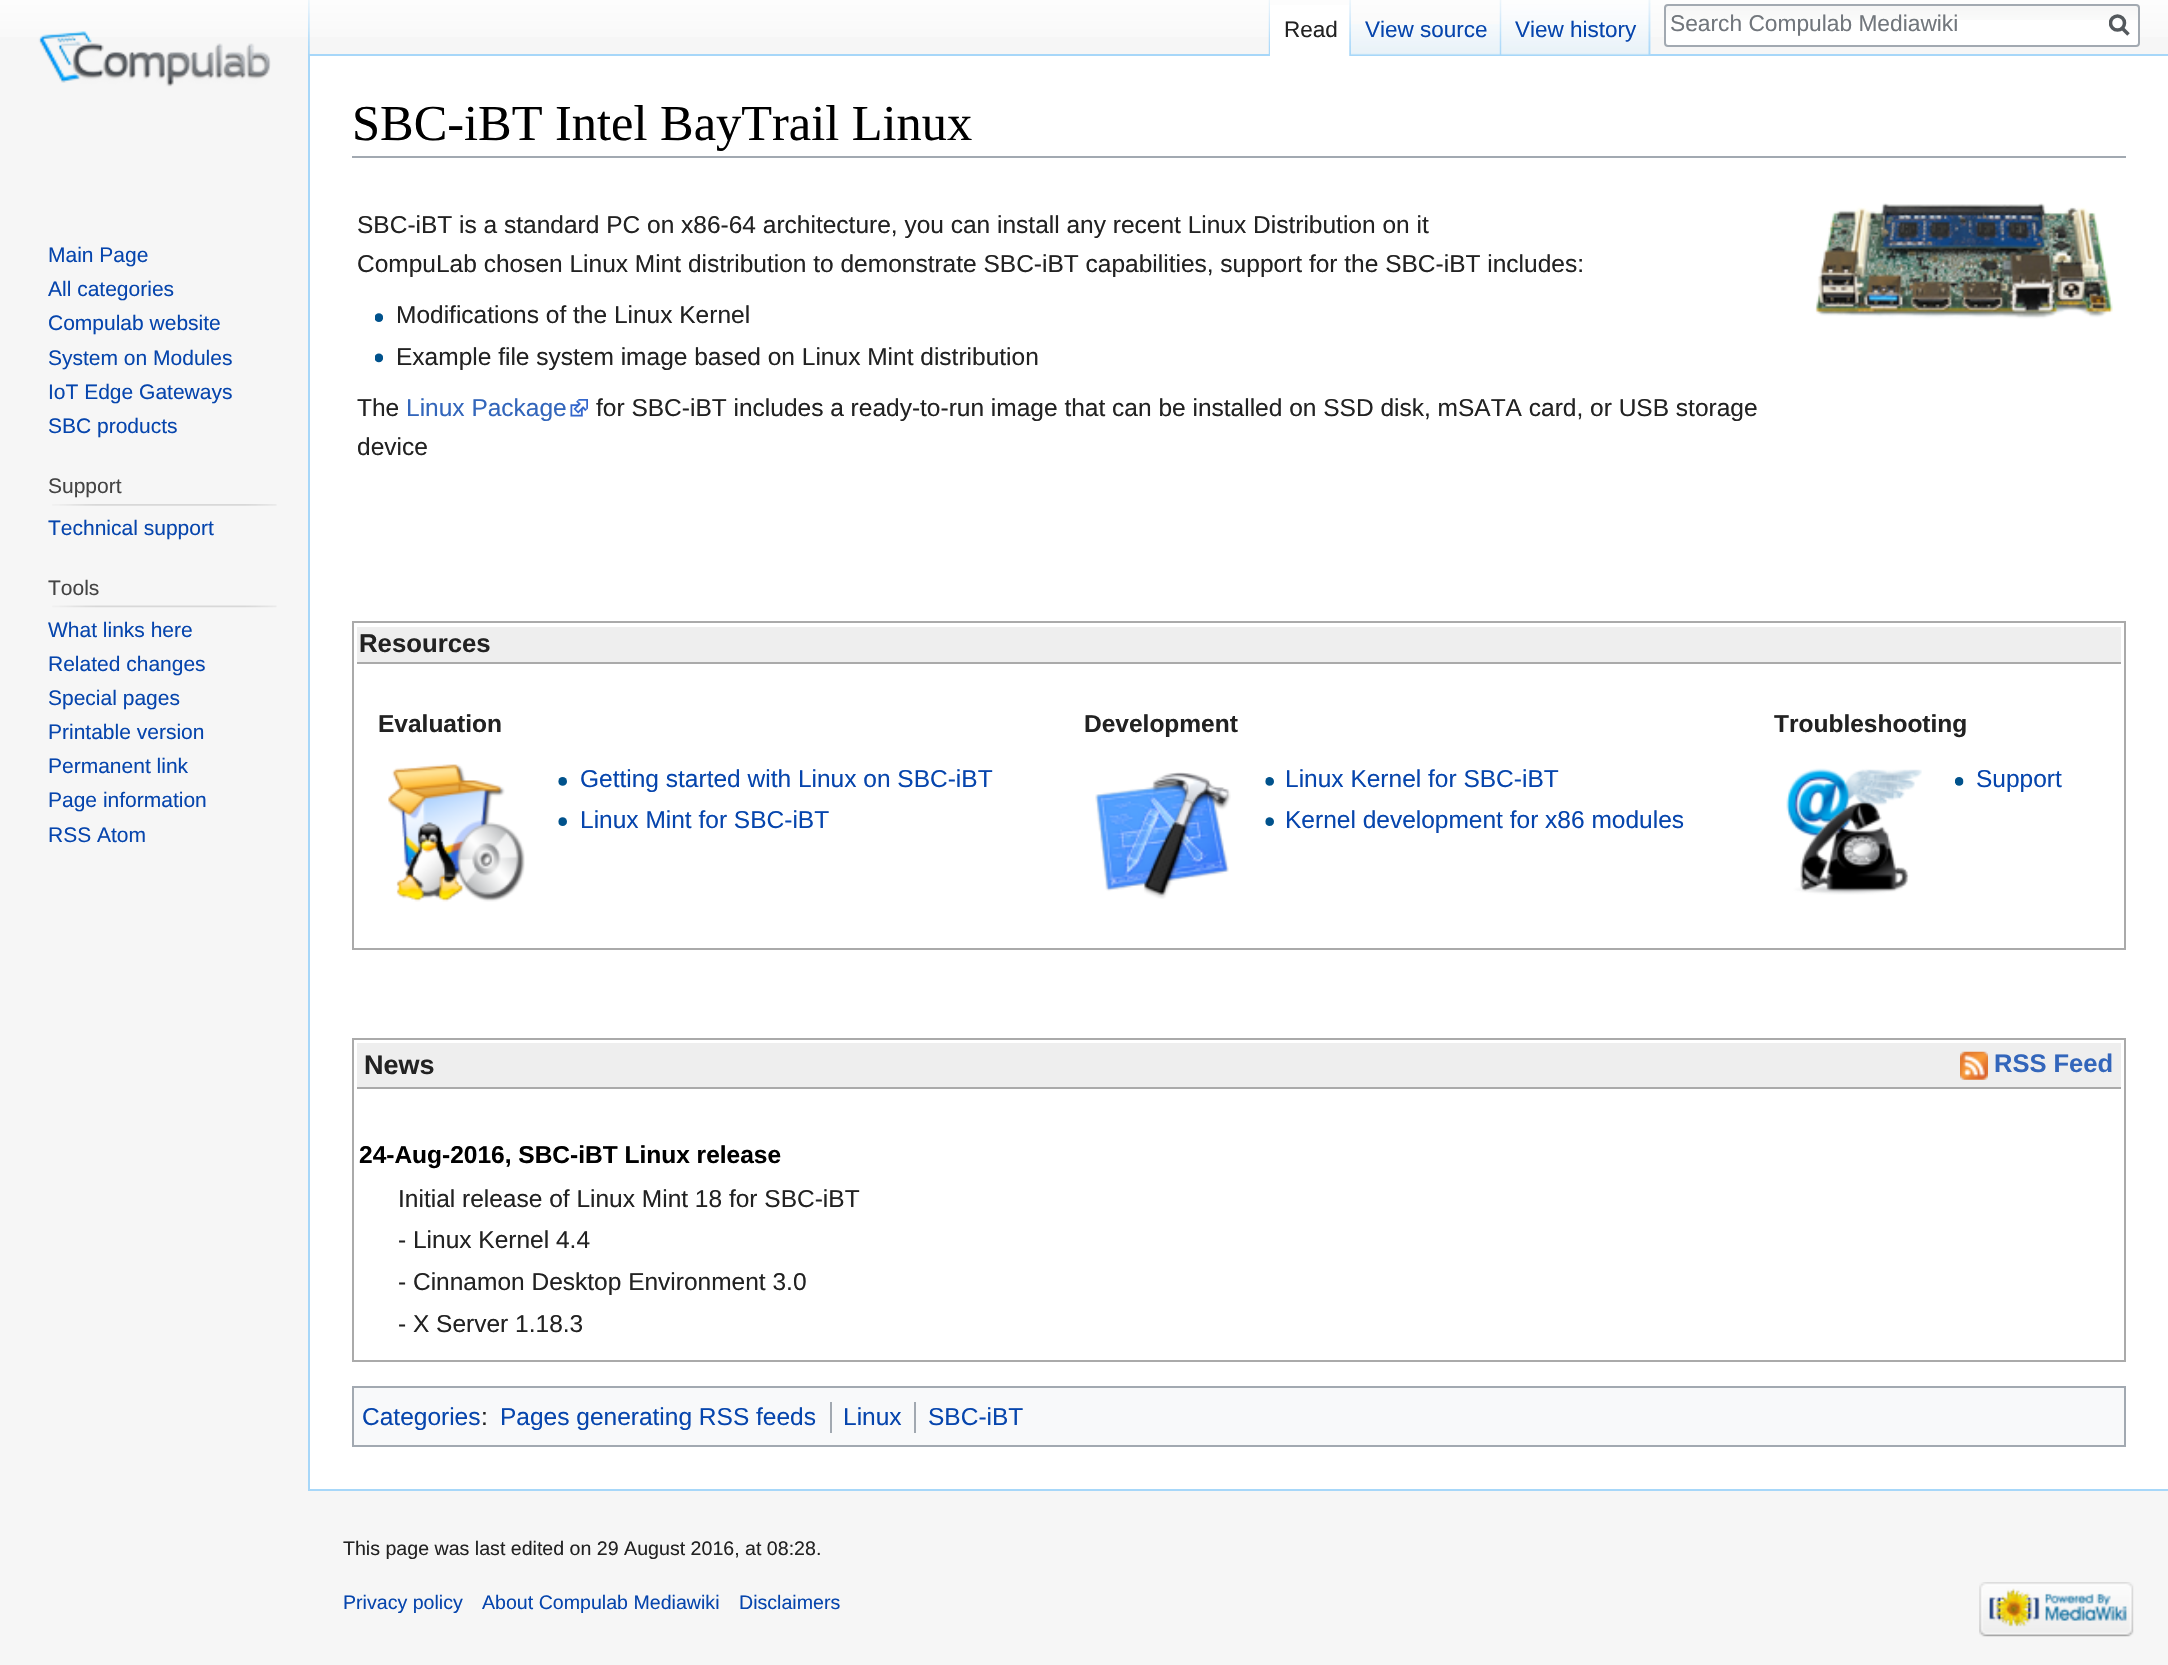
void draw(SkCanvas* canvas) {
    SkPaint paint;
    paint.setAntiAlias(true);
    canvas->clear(0xFFF6F6F6);
    {
        const SkColor colors[] = {0xFFFFFFFF, 0xFFF6F6F6};
        const float stops[] = {0.5f, 1};
        const SkPoint ends[] = {{1084, -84}, {1084, 56}};
        paint.setShader(SkGradientShader::MakeLinear(ends, colors, stops, 2, SkTileMode::kClamp));
        paint.setAlpha(255);
    }
    canvas->drawRect(SkRect::MakeXYWH(0, 0, 2168, 37), paint);
    canvas->drawImageRect(SkImages::DeferredFromEncodedData(SkData::MakeFromFileName("img1.png")), SkRect::MakeXYWH(308, 0, 2, 54), SkSamplingOptions());
    canvas->drawImageRect(SkImages::DeferredFromEncodedData(SkData::MakeFromFileName("img2.png")), SkRect::MakeXYWH(1268, 0, 2, 54), SkSamplingOptions());
    canvas->drawImageRect(SkImages::DeferredFromEncodedData(SkData::MakeFromFileName("img3.png")), SkRect::MakeXYWH(1650, 0, 1, 54), SkSamplingOptions());
    paint.setShader(nullptr);
    paint.setColor(0xFFA7D7F9);
    canvas->drawRect(SkRect::MakeXYWH(308, 54, 1860, 2), paint);
    paint.setColor(0xFFFFFFFF);
    canvas->drawRect(SkRect::MakeXYWH(1270, 5, 80, 51), paint);
    canvas->drawImageRect(SkImages::DeferredFromEncodedData(SkData::MakeFromFileName("img4.png")), SkRect::MakeXYWH(1349, 0, 2, 56), SkSamplingOptions());
    SkFont font1(fontMgr->matchFamilyStyle("Liberation Sans", SkFontStyle::Normal()), 22.5f);
    font1.setSubpixel(true);
    paint.setColor(0xFF222222);
    canvas->drawString("Read", 1284, 37, font1, paint);
    canvas->drawImageRect(SkImages::DeferredFromEncodedData(SkData::MakeFromFileName("img5.png")), SkRect::MakeXYWH(1351, 24, 151, 31), SkSamplingOptions());
    canvas->drawImageRect(SkImages::DeferredFromEncodedData(SkData::MakeFromFileName("img6.png")), SkRect::MakeXYWH(1499, 0, 3, 55), SkSamplingOptions());
    paint.setColor(0xFF0645AD);
    canvas->drawString("View source", 1365, 37, font1, paint);
    canvas->drawImageRect(SkImages::DeferredFromEncodedData(SkData::MakeFromFileName("img7.png")), SkRect::MakeXYWH(1501, 0, 150, 55), SkSamplingOptions());
    canvas->drawImageRect(SkImages::DeferredFromEncodedData(SkData::MakeFromFileName("img8.png")), SkRect::MakeXYWH(1648, 0, 3, 55), SkSamplingOptions());
    canvas->drawString("View history", 1515, 37, font1, paint);
    paint.setColor(0xFFFFFFFF);
    canvas->drawRoundRect(SkRect::MakeXYWH(1664, 4, 476, 43), 4, 4, paint);
    canvas->drawImageRect(SkImages::DeferredFromEncodedData(SkData::MakeFromFileName("img9.png")), SkRect::MakeXYWH(1664, 5, 476, 15), SkSamplingOptions());
    paint.setStyle(SkPaint::kStroke_Style);
    paint.setStrokeWidth(2);
    paint.setColor(0xFFA2A9B1);
    canvas->drawRoundRect(SkRect::MakeXYWH(1665, 5, 474, 41), 3, 3, paint);
    SkFont font2(fontMgr->matchFamilyStyle("Liberation Sans", SkFontStyle::Normal()), 22.75f);
    font2.setSubpixel(true);
    paint.setStyle(SkPaint::kFill_Style);
    paint.setColor(0xFF72777D);
    canvas->drawString("Search Compulab Mediawiki", 1670, 31, font2, paint);
    paint.setStyle(SkPaint::kStroke_Style);
    paint.setStrokeWidth(3.5f);
    paint.setColor(0xFF54595D);
    canvas->drawPath(SkPathBuilder().moveTo(2128.5f, 34.5f).lineTo(2121.5f, 27.5f).detach(), paint);
    canvas->save();
    canvas->clipRect(SkRect::MakeXYWH(2109, 14, 21, 23));
    canvas->drawCircle(2117.5f, 23, 7, paint);
    canvas->restore();
    canvas->drawImageRect(SkImages::DeferredFromEncodedData(SkData::MakeFromFileName("img10.png")), SkRect::MakeXYWH(38, 31, 233, 56), SkSamplingOptions());
    SkFont font3(fontMgr->matchFamilyStyle("Liberation Sans", SkFontStyle::Normal()), 21);
    font3.setSubpixel(true);
    paint.setStyle(SkPaint::kFill_Style);
    paint.setColor(0xFF0645AD);
    canvas->drawString("Main Page", 48, 262, font3, paint);
    canvas->drawString("All categories", 48, 296, font3, paint);
    canvas->drawString("Compulab website", 48, 330, font3, paint);
    canvas->drawString("System on Modules", 48, 365, font3, paint);
    canvas->drawString("IoT Edge Gateways", 48, 399, font3, paint);
    canvas->drawString("SBC products", 48, 433, font3, paint);
    paint.setColor(0xFF444444);
    canvas->drawString("Support", 48, 493, font3, paint);
    canvas->drawImageRect(SkImages::DeferredFromEncodedData(SkData::MakeFromFileName("img11.png")), SkRect::MakeXYWH(52, 504, 225, 2), SkSamplingOptions());
    paint.setColor(0xFF0645AD);
    canvas->drawString("Technical support", 48, 535, font3, paint);
    paint.setColor(0xFF444444);
    canvas->drawString("Tools", 48, 595, font3, paint);
    canvas->drawImageRect(SkImages::DeferredFromEncodedData(SkData::MakeFromFileName("img12.png")), SkRect::MakeXYWH(52, 605, 225, 3), SkSamplingOptions());
    paint.setColor(0xFF0645AD);
    canvas->drawString("What links here", 48, 637, font3, paint);
    canvas->drawString("Related changes", 48, 671, font3, paint);
    canvas->drawString("Special pages", 48, 705, font3, paint);
    canvas->drawString("Printable version", 48, 739, font3, paint);
    canvas->drawString("Permanent link", 48, 773, font3, paint);
    canvas->drawString("Page information", 48, 807, font3, paint);
    canvas->drawString("RSS Atom", 48, 842, font3, paint);
    paint.setColor(0xFFFFFFFF);
    canvas->drawRect(SkRect::MakeXYWH(310, 56, 1858, 1433), paint);
    paint.setColor(0xFFA7D7F9);
    canvas->drawRect(SkRect::MakeXYWH(308, 1489, 1860, 2), paint);
    canvas->drawRect(SkRect::MakeXYWH(308, 54, 2, 1437), paint);
    paint.setColor(0xFFA2A9B1);
    canvas->drawRect(SkRect::MakeXYWH(352, 156, 1774, 2), paint);
    SkFont font4(fontMgr->matchFamilyStyle("Liberation Serif", SkFontStyle::Normal()), 50.4f);
    font4.setSubpixel(true);
    paint.setColor(0xFF000000);
    canvas->drawString("SBC-iBT Intel BayTrail Linux", 352, 140, font4, paint);
    SkFont font5(fontMgr->matchFamilyStyle("Liberation Sans", SkFontStyle::Normal()), 24.5f);
    font5.setSubpixel(true);
    paint.setColor(0xFF222222);
    canvas->drawString("SBC-iBT is a standard PC on x86-64 architecture, you can install any recent Linux Distribution on it", 357, 233, font5, paint);
    canvas->drawString("CompuLab chosen Linux Mint distribution to demonstrate SBC-iBT capabilities, support for the SBC-iBT includes:", 357, 272, font5, paint);
    canvas->drawImageRect(SkImages::DeferredFromEncodedData(SkData::MakeFromFileName("img13.png")), SkRect::MakeXYWH(375, 313, 8, 9), SkSamplingOptions());
    canvas->drawString("Modifications of the Linux Kernel", 396, 323, font5, paint);
    canvas->drawImageRect(SkImages::DeferredFromEncodedData(SkData::MakeFromFileName("img14.png")), SkRect::MakeXYWH(375, 353, 8, 10), SkSamplingOptions());
    canvas->drawString("Example file system image based on Linux Mint distribution", 396, 365, font5, paint);
    canvas->drawString("The", 357, 416, font5, paint);
    paint.setColor(0xFF3366BB);
    canvas->drawString("Linux Package", 406, 416, font5, paint);
    canvas->drawImageRect(SkImages::DeferredFromEncodedData(SkData::MakeFromFileName("img15.png")), SkRect::MakeXYWH(570, 399, 18, 18), SkSamplingOptions());
    paint.setColor(0xFF222222);
    canvas->drawString("for SBC-iBT includes a ready-to-run image that can be installed on SSD disk, mSATA card, or USB storage", 596, 416, font5, paint);
    canvas->drawString("device", 357, 455, font5, paint);
    canvas->drawImageRect(SkImages::DeferredFromEncodedData(SkData::MakeFromFileName("img16.png")), SkRect::MakeXYWH(1815, 203, 298, 116), SkSamplingOptions());
    paint.setStyle(SkPaint::kStroke_Style);
    paint.setStrokeWidth(2);
    paint.setColor(0xFFAAAAAA);
    canvas->drawRect(SkRect::MakeXYWH(353, 622, 1772, 327), paint);
    paint.setStyle(SkPaint::kFill_Style);
    paint.setColor(0xFFEEEEEE);
    canvas->drawRect(SkRect::MakeXYWH(357, 627, 1764, 35), paint);
    paint.setColor(0xFFAAAAAA);
    canvas->drawRect(SkRect::MakeXYWH(357, 662, 1764, 2), paint);
    SkFont font6(fontMgr->matchFamilyStyle("Liberation Sans", SkFontStyle::Bold()), 25.75f);
    font6.setSubpixel(true);
    paint.setColor(0xFF222222);
    canvas->drawString("Resources", 359, 652, font6, paint);
    SkFont font7(fontMgr->matchFamilyStyle("Liberation Sans", SkFontStyle::Bold()), 24.5f);
    font7.setSubpixel(true);
    canvas->drawString("Evaluation", 378, 732, font7, paint);
    canvas->drawImageRect(SkImages::DeferredFromEncodedData(SkData::MakeFromFileName("img17.png")), SkRect::MakeXYWH(388, 764, 137, 138), SkSamplingOptions());
    canvas->drawImageRect(SkImages::DeferredFromEncodedData(SkData::MakeFromFileName("img18.png")), SkRect::MakeXYWH(558, 777, 9, 9), SkSamplingOptions());
    paint.setColor(0xFF0645AD);
    canvas->drawString("Getting started with Linux on SBC-iBT", 580, 787, font5, paint);
    canvas->drawImageRect(SkImages::DeferredFromEncodedData(SkData::MakeFromFileName("img19.png")), SkRect::MakeXYWH(558, 817, 9, 9), SkSamplingOptions());
    canvas->drawString("Linux Mint for SBC-iBT", 580, 828, font5, paint);
    paint.setColor(0xFF222222);
    canvas->drawString("Development", 1084, 732, font7, paint);
    canvas->drawImageRect(SkImages::DeferredFromEncodedData(SkData::MakeFromFileName("img20.png")), SkRect::MakeXYWH(1095, 772, 136, 127), SkSamplingOptions());
    canvas->drawImageRect(SkImages::DeferredFromEncodedData(SkData::MakeFromFileName("img21.png")), SkRect::MakeXYWH(1265, 777, 9, 9), SkSamplingOptions());
    paint.setColor(0xFF0645AD);
    canvas->drawString("Linux Kernel for SBC-iBT", 1285, 787, font5, paint);
    canvas->drawImageRect(SkImages::DeferredFromEncodedData(SkData::MakeFromFileName("img22.png")), SkRect::MakeXYWH(1265, 817, 9, 9), SkSamplingOptions());
    canvas->drawString("Kernel development for x86 modules", 1285, 828, font5, paint);
    paint.setColor(0xFF222222);
    canvas->drawString("Troubleshooting", 1774, 732, font7, paint);
    canvas->drawImageRect(SkImages::DeferredFromEncodedData(SkData::MakeFromFileName("img23.png")), SkRect::MakeXYWH(1786, 768, 136, 127), SkSamplingOptions());
    canvas->drawImageRect(SkImages::DeferredFromEncodedData(SkData::MakeFromFileName("img24.png")), SkRect::MakeXYWH(1955, 777, 9, 9), SkSamplingOptions());
    paint.setColor(0xFF0645AD);
    canvas->drawString("Support", 1976, 787, font5, paint);
    paint.setStyle(SkPaint::kStroke_Style);
    paint.setColor(0xFFAAAAAA);
    canvas->drawRect(SkRect::MakeXYWH(353, 1039, 1772, 322), paint);
    paint.setStyle(SkPaint::kFill_Style);
    paint.setColor(0xFFEEEEEE);
    canvas->drawRect(SkRect::MakeXYWH(357, 1043, 1764, 44), paint);
    paint.setColor(0xFFAAAAAA);
    canvas->drawRect(SkRect::MakeXYWH(357, 1087, 1764, 2), paint);
    SkFont font8(fontMgr->matchFamilyStyle("Liberation Sans", SkFontStyle::Bold()), 27);
    font8.setSubpixel(true);
    paint.setColor(0xFF222222);
    canvas->drawString("News", 364, 1074, font8, paint);
    canvas->drawImageRect(SkImages::DeferredFromEncodedData(SkData::MakeFromFileName("img25.png")), SkRect::MakeXYWH(1960, 1051, 28, 29), SkSamplingOptions());
    SkFont font9(fontMgr->matchFamilyStyle("Liberation Sans", SkFontStyle::Bold()), 25.5f);
    font9.setSubpixel(true);
    paint.setColor(0xFF3366BB);
    canvas->drawString("RSS Feed", 1994, 1072, font9, paint);
    paint.setColor(0xFF000000);
    canvas->drawString("24-Aug-2016, SBC-iBT Linux release", 359, 1163, font7, paint);
    paint.setColor(0xFF222222);
    canvas->drawString("Initial release of Linux Mint 18 for SBC-iBT", 398, 1207, font5, paint);
    canvas->drawString("- Linux Kernel 4.4", 398, 1248, font5, paint);
    canvas->drawString("- Cinnamon Desktop Environment 3.0", 398, 1290, font5, paint);
    canvas->drawString("- X Server 1.18.3", 398, 1332, font5, paint);
    paint.setColor(0xFFF8F9FA);
    canvas->drawRect(SkRect::MakeXYWH(353, 1387, 1772, 59), paint);
    paint.setStyle(SkPaint::kStroke_Style);
    paint.setColor(0xFFA2A9B1);
    canvas->drawRect(SkRect::MakeXYWH(353, 1387, 1772, 59), paint);
    paint.setStyle(SkPaint::kFill_Style);
    paint.setColor(0xFF0645AD);
    canvas->drawString("Categories", 362, 1425, font5, paint);
    paint.setColor(0xFF222222);
    canvas->drawString(":", 481, 1425, font5, paint);
    paint.setColor(0xFF0645AD);
    canvas->drawString("Pages generating RSS feeds", 500, 1425, font5, paint);
    paint.setColor(0xFFA2A9B1);
    canvas->drawRect(SkRect::MakeXYWH(830, 1402, 2, 31), paint);
    paint.setColor(0xFF0645AD);
    canvas->drawString("Linux", 843, 1425, font5, paint);
    paint.setColor(0xFFA2A9B1);
    canvas->drawRect(SkRect::MakeXYWH(914, 1402, 2, 31), paint);
    paint.setColor(0xFF0645AD);
    canvas->drawString("SBC-iBT", 928, 1425, font5, paint);
    SkFont font10(fontMgr->matchFamilyStyle("Liberation Sans", SkFontStyle::Normal()), 19.6f);
    font10.setSubpixel(true);
    paint.setColor(0xFF222222);
    canvas->drawString("This page was last edited on 29 August 2016, at 08:28.", 343, 1555, font10, paint);
    paint.setColor(0xFF0645AD);
    canvas->drawString("Privacy policy", 343, 1609, font10, paint);
    canvas->drawString("About Compulab Mediawiki", 482, 1609, font10, paint);
    canvas->drawString("Disclaimers", 739, 1609, font10, paint);
    canvas->drawImageRect(SkImages::DeferredFromEncodedData(SkData::MakeFromFileName("img26.png")), SkRect::MakeXYWH(1979, 1582, 155, 55), SkSamplingOptions());
}
